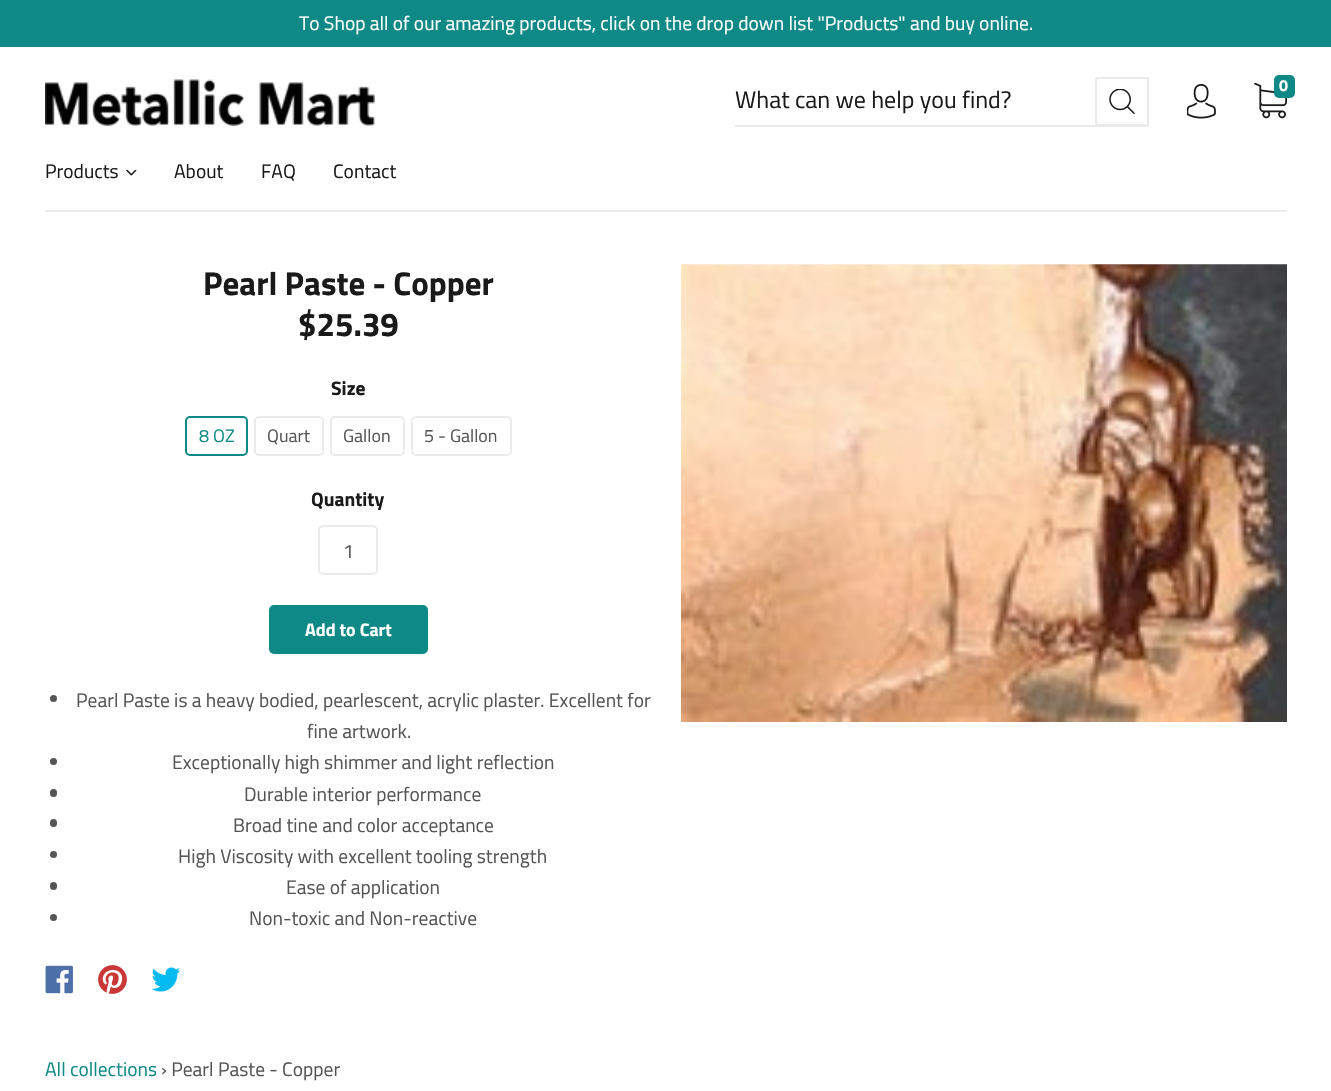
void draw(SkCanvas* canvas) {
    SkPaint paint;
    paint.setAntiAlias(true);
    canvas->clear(0xFFFFFFFF);
    paint.setColor(0xFF0F8985);
    canvas->drawRect(SkRect::MakeXYWH(0, 0, 1331, 47), paint);
    SkFont font1(fontMgr->matchFamilyStyle("Titillium Web", SkFontStyle::Normal()), 19.5f);
    font1.setSubpixel(true);
    paint.setColor(0xFFFFFFFF);
    canvas->drawString("To Shop all of our amazing products, click on the drop down list \"Products\" and buy online.", 299, 30, font1, paint);
    canvas->drawImageRect(SkImages::DeferredFromEncodedData(SkData::MakeFromFileName("img1.png")), SkRect::MakeXYWH(45, 79, 330, 47), SkSamplingOptions());
    canvas->drawImageRect(SkImages::DeferredFromEncodedData(SkData::MakeFromFileName("img2.png")), SkRect::MakeXYWH(1187, 84, 29, 35), SkSamplingOptions());
    canvas->drawImageRect(SkImages::DeferredFromEncodedData(SkData::MakeFromFileName("img3.png")), SkRect::MakeXYWH(1254, 83, 33, 36), SkSamplingOptions());
    paint.setColor(0xFF0F8985);
    canvas->drawRoundRect(SkRect::MakeXYWH(1274, 75, 21, 23), 5, 5, paint);
    SkFont font2(fontMgr->matchFamilyStyle("Titillium Web", SkFontStyle::Bold()), 16);
    font2.setSubpixel(true);
    paint.setColor(0xFFFFFFFF);
    canvas->drawString("0", 1279, 91, font2, paint);
    paint.setColor(0xFFEBEBEB);
    canvas->drawRect(SkRect::MakeXYWH(735, 125, 414, 2), paint);
    SkFont font3(fontMgr->matchFamilyStyle("Titillium Web", SkFontStyle::Normal()), 24);
    font3.setSubpixel(true);
    paint.setColor(0xFF1A1A1A);
    canvas->drawString("What can we help you find?", 735, 108, font3, paint);
    paint.setStyle(SkPaint::kStroke_Style);
    paint.setStrokeWidth(2);
    paint.setColor(0xFFEBEBEB);
    canvas->drawRect(SkRect::MakeXYWH(1096, 78, 52, 47), paint);
    canvas->drawImageRect(SkImages::DeferredFromEncodedData(SkData::MakeFromFileName("img4.png")), SkRect::MakeXYWH(1109, 89, 26, 25), SkSamplingOptions());
    paint.setStyle(SkPaint::kFill_Style);
    paint.setColor(0xFF1A1A1A);
    canvas->drawString("Products", 45, 178, font1, paint);
    canvas->drawImageRect(SkImages::DeferredFromEncodedData(SkData::MakeFromFileName("img5.png")), SkRect::MakeXYWH(126, 170, 11, 6), SkSamplingOptions());
    canvas->drawString("About", 174, 178, font1, paint);
    canvas->drawString("FAQ", 261, 178, font1, paint);
    canvas->drawString("Contact", 333, 178, font1, paint);
    paint.setColor(0xFFEBEBEB);
    canvas->drawRect(SkRect::MakeXYWH(45, 210, 1242, 2), paint);
    SkFont font4(fontMgr->matchFamilyStyle("Titillium Web", SkFontStyle::Bold()), 33);
    font4.setSubpixel(true);
    paint.setColor(0xFF1A1A1A);
    canvas->drawString("Pearl Paste - Copper", 203, 295, font4, paint);
    canvas->drawString("$25.39", 298, 336, font4, paint);
    SkFont font5(fontMgr->matchFamilyStyle("Titillium Web", SkFontStyle::Bold()), 19.5f);
    font5.setSubpixel(true);
    canvas->drawString("Size", 331, 395, font5, paint);
    paint.setStyle(SkPaint::kStroke_Style);
    paint.setColor(0xFF0F8985);
    canvas->drawRoundRect(SkRect::MakeXYWH(186, 417, 61, 38), 4, 4, paint);
    SkFont font6(fontMgr->matchFamilyStyle("Titillium Web", SkFontStyle::Normal()), 18);
    font6.setSubpixel(true);
    paint.setStyle(SkPaint::kFill_Style);
    canvas->drawString("8 OZ", 199, 442, font6, paint);
    paint.setStyle(SkPaint::kStroke_Style);
    paint.setColor(0xFFEBEBEB);
    canvas->drawRoundRect(SkRect::MakeXYWH(255, 417, 68, 38), 4, 4, paint);
    paint.setStyle(SkPaint::kFill_Style);
    paint.setColor(0xFF555555);
    canvas->drawString("Quart", 267, 442, font6, paint);
    paint.setStyle(SkPaint::kStroke_Style);
    paint.setColor(0xFFEBEBEB);
    canvas->drawRoundRect(SkRect::MakeXYWH(331, 417, 73, 38), 4, 4, paint);
    paint.setStyle(SkPaint::kFill_Style);
    paint.setColor(0xFF555555);
    canvas->drawString("Gallon", 343, 442, font6, paint);
    paint.setStyle(SkPaint::kStroke_Style);
    paint.setColor(0xFFEBEBEB);
    canvas->drawRoundRect(SkRect::MakeXYWH(412, 417, 99, 38), 4, 4, paint);
    paint.setStyle(SkPaint::kFill_Style);
    paint.setColor(0xFF555555);
    canvas->drawString("5 - Gallon", 424, 442, font6, paint);
    paint.setColor(0xFF1A1A1A);
    canvas->drawString("Quantity", 311, 506, font5, paint);
    paint.setStyle(SkPaint::kStroke_Style);
    paint.setColor(0xFFEBEBEB);
    canvas->drawRoundRect(SkRect::MakeXYWH(319, 526, 58, 48), 4, 4, paint);
    paint.setStyle(SkPaint::kFill_Style);
    paint.setColor(0xFF555555);
    canvas->drawString("1", 343, 558, font1, paint);
    paint.setColor(0xFF0F8985);
    canvas->drawRoundRect(SkRect::MakeXYWH(269, 605, 159, 49), 5, 5, paint);
    SkFont font7(fontMgr->matchFamilyStyle("Titillium Web", SkFontStyle::Bold()), 18);
    font7.setSubpixel(true);
    paint.setColor(0xFFFFFFFF);
    canvas->drawString("Add to Cart", 305, 636, font7, paint);
    paint.setColor(0xFF555555);
    canvas->drawCircle(53.5f, 698.5f, 3.5f, paint);
    canvas->drawString("Pearl Paste is a heavy bodied, pearlescent, acrylic plaster. Excellent for", 76, 707, font1, paint);
    canvas->drawString("fine artwork.", 307, 738, font1, paint);
    canvas->drawCircle(53.5f, 761.5f, 3.5f, paint);
    canvas->drawString("Exceptionally high shimmer and light reflection", 172, 769, font1, paint);
    canvas->drawRoundRect(SkRect::MakeXYWH(50, 789, 7, 8), 3.5f, 3.5f, paint);
    canvas->drawString("Durable interior performance", 244, 801, font1, paint);
    canvas->drawRoundRect(SkRect::MakeXYWH(50, 819, 7, 8), 3.5f, 3.5f, paint);
    canvas->drawString("Broad tine and color acceptance", 233, 832, font1, paint);
    canvas->drawCircle(53.5f, 854.5f, 3.5f, paint);
    canvas->drawString("High Viscosity with excellent tooling strength", 178, 863, font1, paint);
    canvas->drawRoundRect(SkRect::MakeXYWH(50, 882, 7, 8), 3.5f, 3.5f, paint);
    canvas->drawString("Ease of application", 286, 894, font1, paint);
    canvas->drawCircle(53.5f, 917.5f, 3.5f, paint);
    canvas->drawString("Non-toxic and Non-reactive", 249, 925, font1, paint);
    canvas->drawImageRect(SkImages::DeferredFromEncodedData(SkData::MakeFromFileName("img6.png")), SkRect::MakeXYWH(45, 965, 28, 29), SkSamplingOptions());
    canvas->drawImageRect(SkImages::DeferredFromEncodedData(SkData::MakeFromFileName("img7.png")), SkRect::MakeXYWH(98, 965, 29, 29), SkSamplingOptions());
    canvas->drawImageRect(SkImages::DeferredFromEncodedData(SkData::MakeFromFileName("img8.png")), SkRect::MakeXYWH(152, 967, 29, 25), SkSamplingOptions());
    canvas->drawImageRect(SkImages::DeferredFromEncodedData(SkData::MakeFromFileName("img9.png")), SkRect::MakeXYWH(681, 264, 606, 458), SkSamplingOptions());
    paint.setColor(0xFF0F8985);
    canvas->drawString("All collections", 45, 1076, font1, paint);
    paint.setColor(0xFF555555);
    canvas->drawString("› Pearl Paste - Copper", 161, 1076, font1, paint);
}
